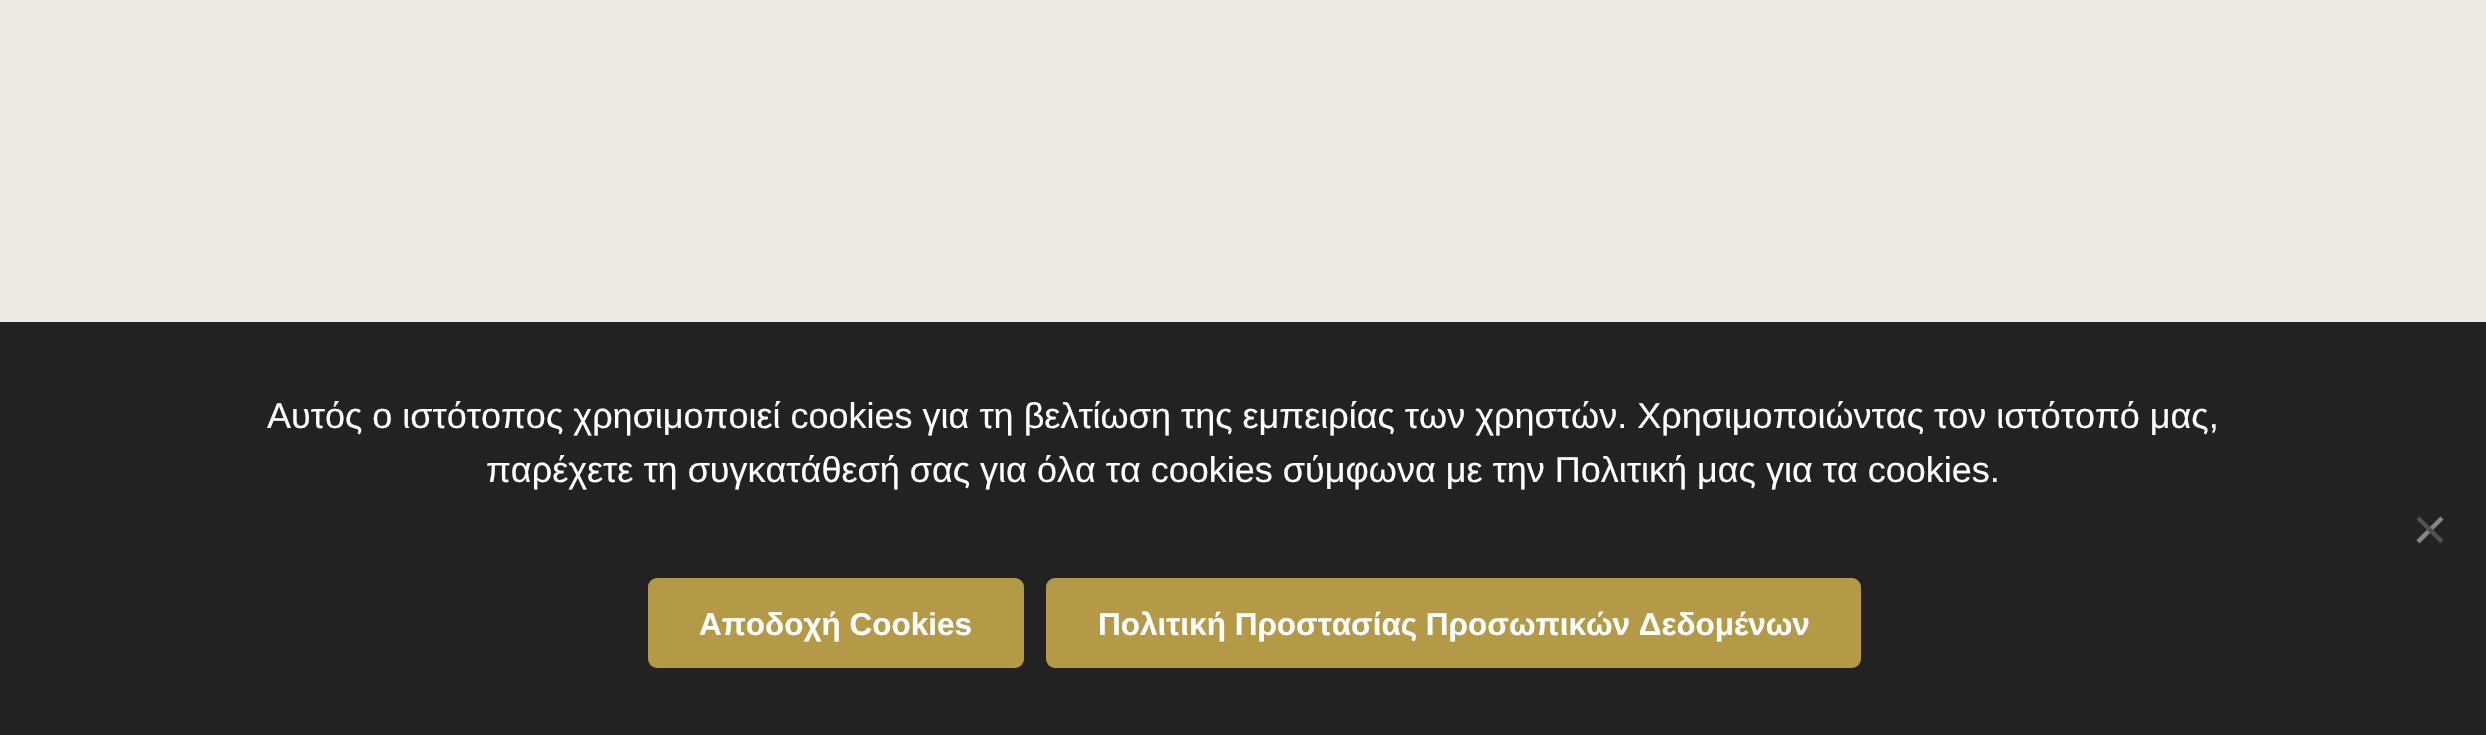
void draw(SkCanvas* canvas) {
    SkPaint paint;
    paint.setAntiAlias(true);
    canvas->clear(0xFFECE9E2);
    paint.setColor(0xFF222222);
    canvas->drawRect(SkRect::MakeXYWH(0, 322, 2486, 413), paint);
    SkFont font1(fontMgr->matchFamilyStyle("Liberation Sans", SkFontStyle::Normal()), 36);
    font1.setSubpixel(true);
    paint.setColor(0xFFFFFFFF);
    canvas->drawString("Αυτός ο ιστότοπος χρησιμοποιεί cookies για τη βελτίωση της εμπειρίας των χρηστών. Χρησιμοποιώντας τον ιστότοπό μας,", 267, 428, font1, paint);
    canvas->drawString("παρέχετε τη συγκατάθεσή σας για όλα τα cookies σύμφωνα με την Πολιτική μας για τα cookies.", 486, 482, font1, paint);
    paint.setColor(0xFF868686);
    canvas->drawPath(SkPathBuilder().moveTo(2440.5f, 516.5f).lineTo(2443.5f, 519.5f).lineTo(2419.5f, 543.5f).lineTo(2416.5f, 540).close().detach(), paint);
    paint.setColor(0xFF515151);
    canvas->drawPath(SkPathBuilder().moveTo(2416.5f, 519.5f).lineTo(2419.5f, 516.5f).lineTo(2443.5f, 540).lineTo(2440.5f, 543.5f).close().detach(), paint);
    paint.setColor(0xFFB49A46);
    canvas->drawRoundRect(SkRect::MakeXYWH(648, 578, 376, 90), 9, 9, paint);
    SkFont font2(fontMgr->matchFamilyStyle("Liberation Sans", SkFontStyle::Bold()), 31.5f);
    font2.setSubpixel(true);
    paint.setColor(0xFFFFFFFF);
    canvas->drawString("Αποδοχή Cookies", 699, 635, font2, paint);
    paint.setColor(0xFFB49A46);
    canvas->drawRoundRect(SkRect::MakeXYWH(1046, 578, 815, 90), 9, 9, paint);
    paint.setColor(0xFFFFFFFF);
    canvas->drawString("Πολιτική Προστασίας Προσωπικών Δεδομένων", 1098, 635, font2, paint);
}
